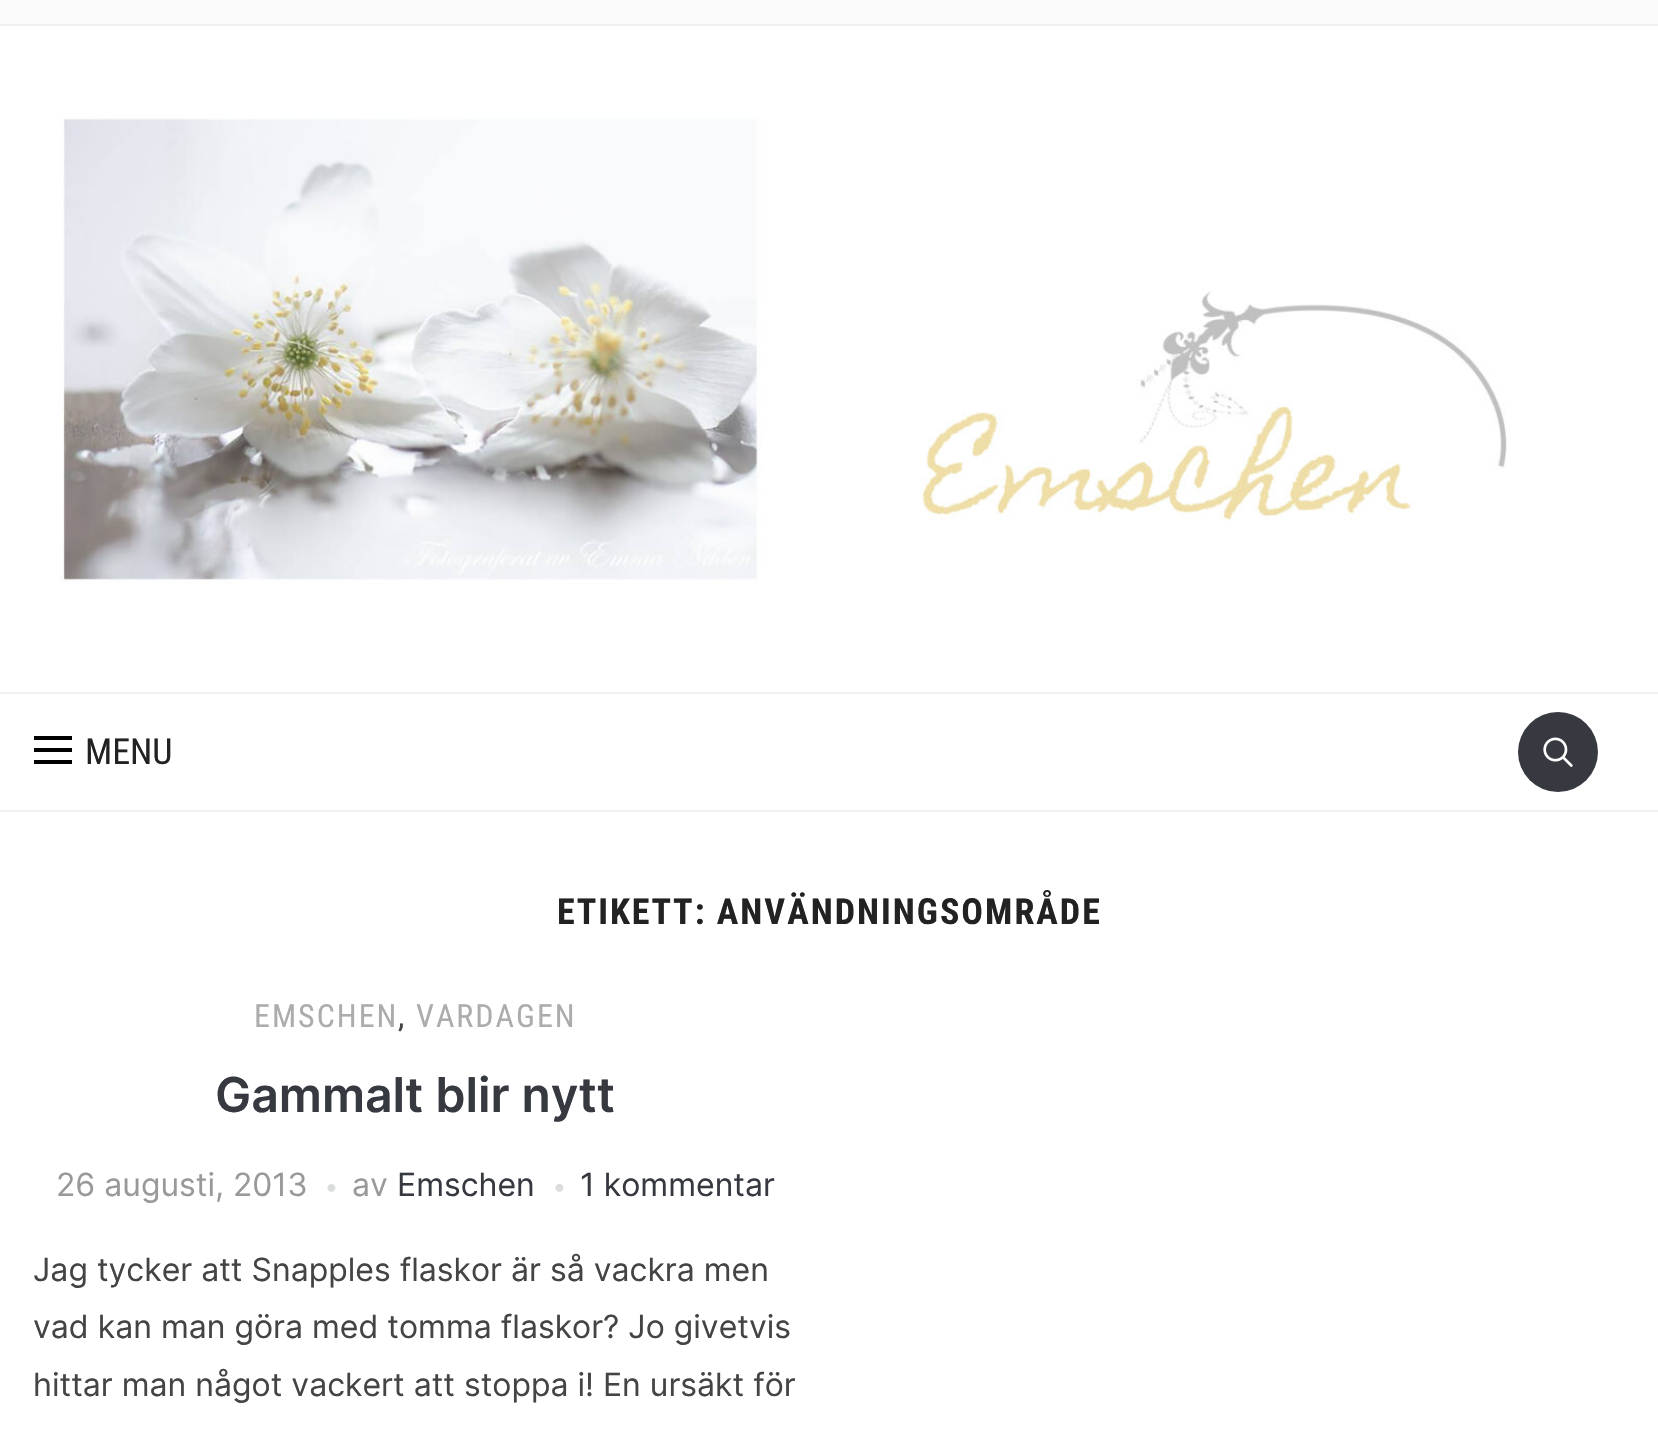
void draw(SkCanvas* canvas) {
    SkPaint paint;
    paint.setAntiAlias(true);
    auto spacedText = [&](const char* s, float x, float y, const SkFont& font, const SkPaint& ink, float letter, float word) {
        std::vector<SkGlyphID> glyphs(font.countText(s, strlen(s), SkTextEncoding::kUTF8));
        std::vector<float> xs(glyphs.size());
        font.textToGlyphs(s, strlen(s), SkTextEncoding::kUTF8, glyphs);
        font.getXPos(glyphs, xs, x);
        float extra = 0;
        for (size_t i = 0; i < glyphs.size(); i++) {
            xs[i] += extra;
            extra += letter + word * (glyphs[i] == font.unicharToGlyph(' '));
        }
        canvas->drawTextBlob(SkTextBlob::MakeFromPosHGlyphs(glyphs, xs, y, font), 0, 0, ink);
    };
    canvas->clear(0xFFFFFFFF);
    paint.setColor(0xFFFAFAFA);
    canvas->drawRect(SkRect::MakeXYWH(0, 0, 1658, 24), paint);
    paint.setColor(0xFFF0F0F0);
    canvas->drawRect(SkRect::MakeXYWH(0, 24, 1658, 2), paint);
    canvas->drawImageRect(SkImages::DeferredFromEncodedData(SkData::MakeFromFileName("img1.png")), SkRect::MakeXYWH(59, 113, 1448, 472), SkSamplingOptions());
    canvas->drawRect(SkRect::MakeXYWH(0, 692, 1658, 2), paint);
    canvas->drawRect(SkRect::MakeXYWH(0, 810, 1658, 2), paint);
    paint.setColor(0xFF000000);
    canvas->drawRect(SkRect::MakeXYWH(34, 736, 38, 4), paint);
    canvas->drawRect(SkRect::MakeXYWH(34, 748, 38, 4), paint);
    canvas->drawRect(SkRect::MakeXYWH(34, 760, 38, 4), paint);
    SkFont font1(fontMgr->matchFamilyStyle("Roboto Condensed", SkFontStyle::Normal()), 36);
    font1.setSubpixel(true);
    paint.setColor(0xFF222222);
    canvas->drawString("MENU", 85, 764, font1, paint);
    paint.setColor(0xFF363940);
    canvas->drawCircle(1558, 752, 40, paint);
    canvas->drawImageRect(SkImages::DeferredFromEncodedData(SkData::MakeFromFileName("img2.png")), SkRect::MakeXYWH(1543, 737, 30, 30), SkSamplingOptions());
    SkFont font2(fontMgr->matchFamilyStyle("Roboto Condensed", SkFontStyle::Bold()), 36);
    font2.setSubpixel(true);
    paint.setColor(0xFF222222);
    spacedText("ETIKETT: ANVÄNDNINGSOMRÅDE", 557, 924, font2, paint, 2, 0);
    SkFont font3(fontMgr->matchFamilyStyle("Roboto Condensed", SkFontStyle::Normal()), 32);
    font3.setSubpixel(true);
    paint.setColor(0xFFACACAC);
    spacedText("EMSCHEN", 254, 1027, font3, paint, 2, 0);
    paint.setColor(0xFF444444);
    spacedText(",", 398, 1027, font3, paint, 2, 0);
    paint.setColor(0xFFACACAC);
    spacedText("VARDAGEN", 416, 1027, font3, paint, 2, 0);
    SkFont font4(fontMgr->matchFamilyStyle("Inter", SkFontStyle(600, SkFontStyle::kNormal_Width, SkFontStyle::kUpright_Slant)), 48);
    font4.setSubpixel(true);
    paint.setColor(0xFF363940);
    canvas->drawString("Gammalt blir nytt", 215, 1112, font4, paint);
    SkFont font5(fontMgr->matchFamilyStyle("Inter", SkFontStyle::Normal()), 32);
    font5.setSubpixel(true);
    paint.setColor(0xFF999999);
    canvas->drawString("26 augusti, 2013", 56, 1196, font5, paint);
    SkFont font6(fontMgr->matchFamilyStyle("Liberation Sans", SkFontStyle::Normal()), 18);
    font6.setSubpixel(true);
    paint.setColor(0xFFDBDDDD);
    canvas->drawString("●", 326, 1193, font6, paint);
    paint.setColor(0xFF999999);
    canvas->drawString("av", 352, 1196, font5, paint);
    paint.setColor(0xFF363940);
    canvas->drawString("Emschen", 397, 1196, font5, paint);
    paint.setColor(0xFFDBDDDD);
    canvas->drawString("●", 554, 1193, font6, paint);
    paint.setColor(0xFF363940);
    canvas->drawString("1 kommentar", 580, 1196, font5, paint);
    paint.setColor(0xFF444444);
    canvas->drawString("Jag tycker att Snapples flaskor är så vackra men", 33, 1281, font5, paint);
    canvas->drawString("vad kan man göra med tomma flaskor? Jo givetvis", 33, 1338, font5, paint);
    canvas->drawString("hittar man något vackert att stoppa i! En ursäkt för", 33, 1396, font5, paint);
}
